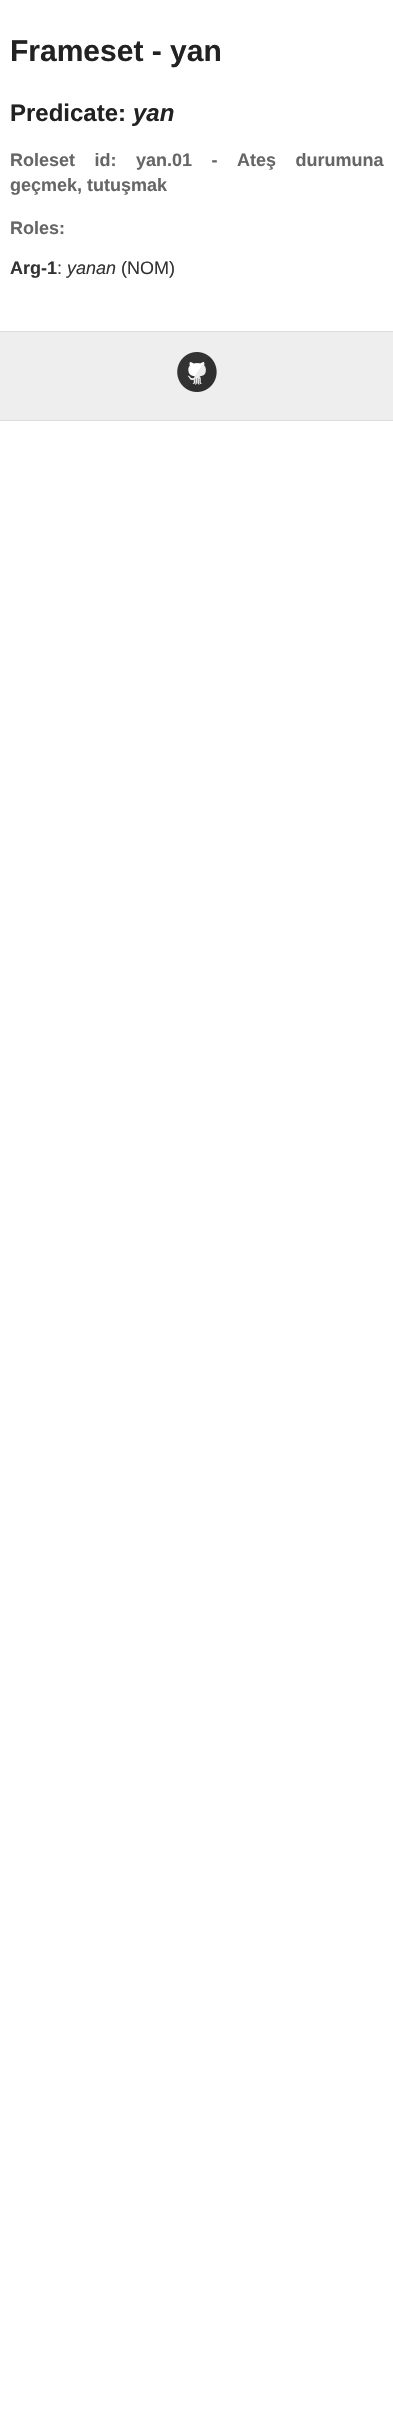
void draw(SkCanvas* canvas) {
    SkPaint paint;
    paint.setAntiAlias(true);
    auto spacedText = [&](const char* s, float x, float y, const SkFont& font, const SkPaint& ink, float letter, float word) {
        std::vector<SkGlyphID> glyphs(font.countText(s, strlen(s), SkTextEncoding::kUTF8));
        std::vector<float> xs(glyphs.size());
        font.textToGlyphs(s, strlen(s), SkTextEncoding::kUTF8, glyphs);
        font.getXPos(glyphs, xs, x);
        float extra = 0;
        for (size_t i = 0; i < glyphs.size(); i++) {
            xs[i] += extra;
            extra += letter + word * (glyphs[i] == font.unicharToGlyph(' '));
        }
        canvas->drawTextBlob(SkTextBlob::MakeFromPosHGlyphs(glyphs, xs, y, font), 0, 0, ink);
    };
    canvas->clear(0xFFFFFFFF);
    SkFont font1(fontMgr->matchFamilyStyle("Liberation Sans", SkFontStyle::Bold()), 30);
    font1.setSubpixel(true);
    paint.setColor(0xFF222222);
    canvas->drawString("Frameset - yan", 10, 61, font1, paint);
    SkFont font2(fontMgr->matchFamilyStyle("Liberation Sans", SkFontStyle::Bold()), 24);
    font2.setSubpixel(true);
    canvas->drawString("Predicate:", 10, 121, font2, paint);
    SkFont font3(fontMgr->matchFamilyStyle("Liberation Sans", SkFontStyle::BoldItalic()), 24);
    font3.setSubpixel(true);
    canvas->drawString("yan", 133, 121, font3, paint);
    SkFont font4(fontMgr->matchFamilyStyle("Liberation Sans", SkFontStyle::Bold()), 18);
    font4.setSubpixel(true);
    paint.setColor(0xFF666666);
    spacedText("Roleset id: yan.01 - Ateş durumuna", 10, 166, font4, paint, 0, 14.5f);
    canvas->drawString("geçmek, tutuşmak", 10, 191, font4, paint);
    canvas->drawString("Roles:", 10, 234, font4, paint);
    paint.setColor(0xFF333333);
    canvas->drawString("Arg-1", 10, 274, font4, paint);
    SkFont font5(fontMgr->matchFamilyStyle("Liberation Sans", SkFontStyle::Normal()), 18);
    font5.setSubpixel(true);
    canvas->drawString(":", 57, 274, font5, paint);
    SkFont font6(fontMgr->matchFamilyStyle("Liberation Sans", SkFontStyle::Italic()), 18);
    font6.setSubpixel(true);
    canvas->drawString("yanan", 67, 274, font6, paint);
    canvas->drawString("(NOM)", 121, 274, font5, paint);
    paint.setColor(0xFFEEEEEE);
    canvas->drawRect(SkRect::MakeXYWH(0, 332, 393, 88), paint);
    paint.setColor(0xFFDDDDDD);
    canvas->drawRect(SkRect::MakeXYWH(0, 331, 393, 1), paint);
    canvas->drawRect(SkRect::MakeXYWH(0, 420, 393, 1), paint);
    canvas->drawImageRect(SkImages::DeferredFromEncodedData(SkData::MakeFromFileName("img1.png")), SkRect::MakeXYWH(177, 352, 40, 40), SkSamplingOptions());
}
